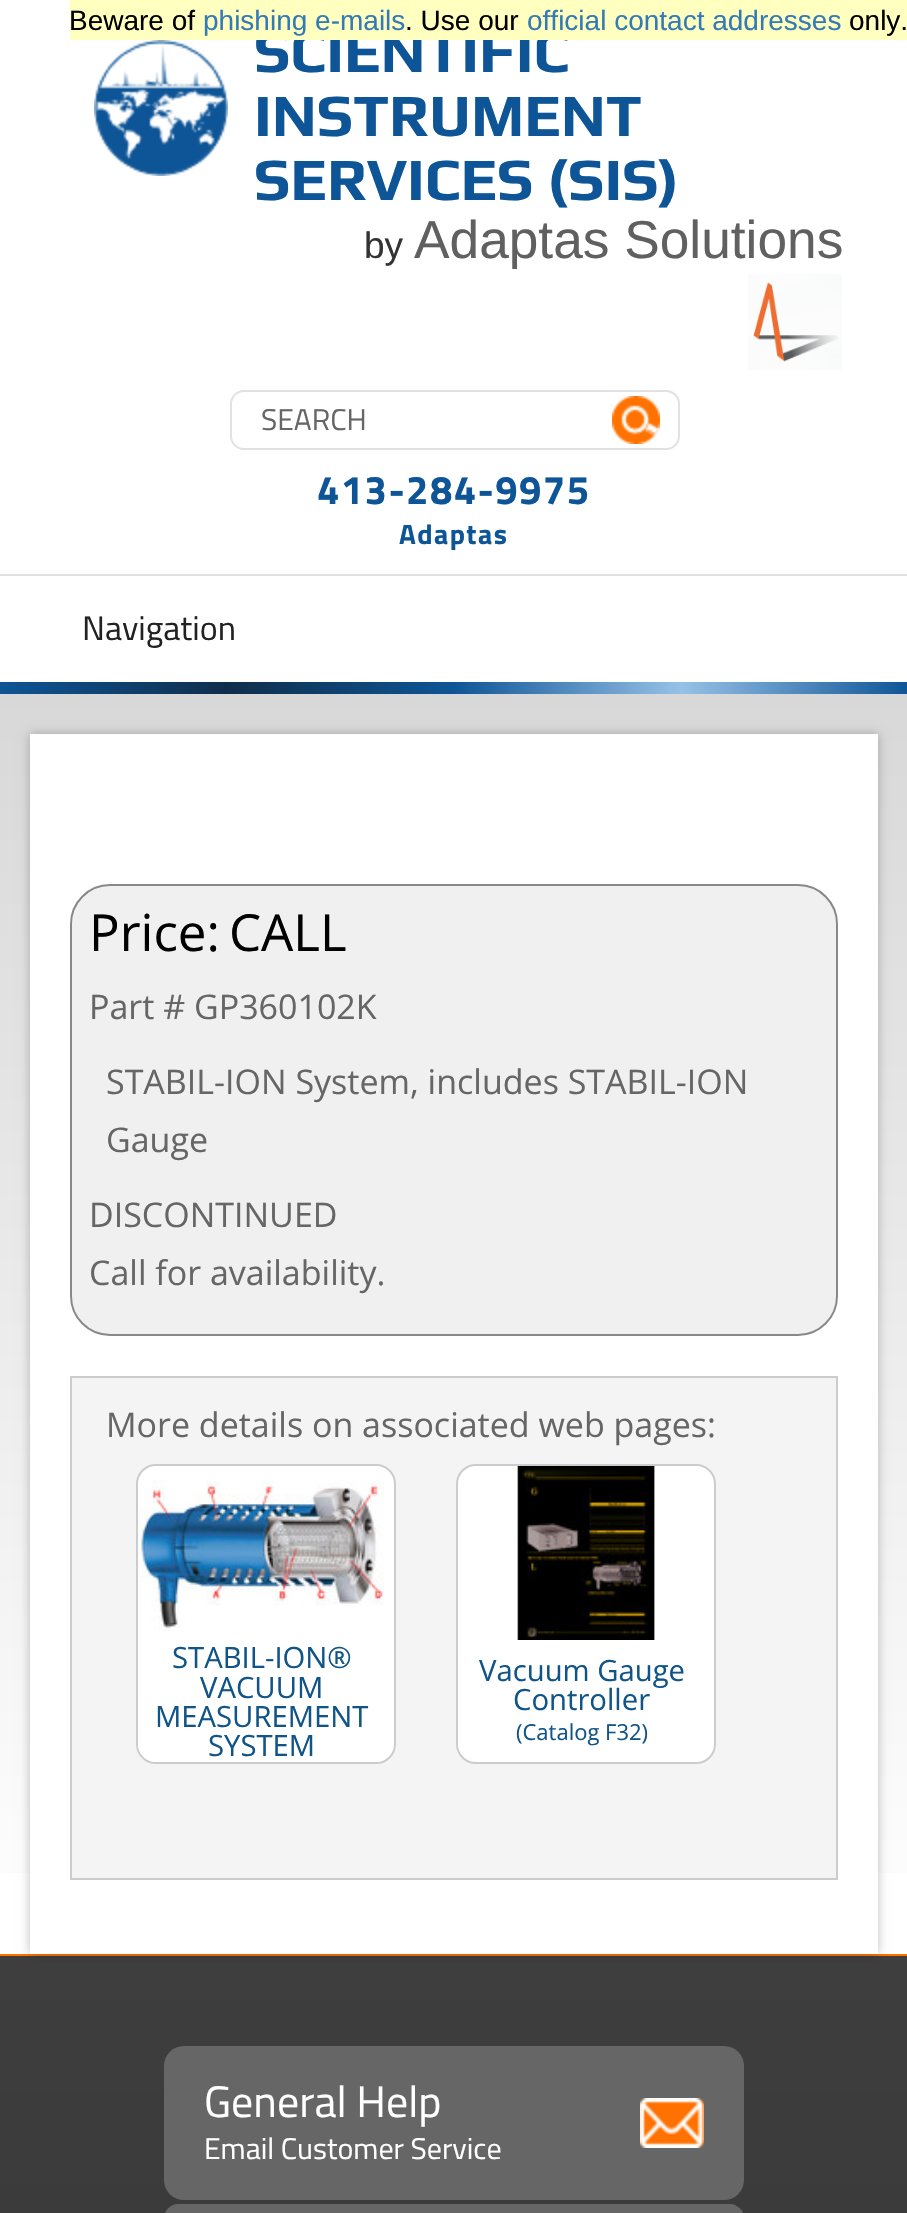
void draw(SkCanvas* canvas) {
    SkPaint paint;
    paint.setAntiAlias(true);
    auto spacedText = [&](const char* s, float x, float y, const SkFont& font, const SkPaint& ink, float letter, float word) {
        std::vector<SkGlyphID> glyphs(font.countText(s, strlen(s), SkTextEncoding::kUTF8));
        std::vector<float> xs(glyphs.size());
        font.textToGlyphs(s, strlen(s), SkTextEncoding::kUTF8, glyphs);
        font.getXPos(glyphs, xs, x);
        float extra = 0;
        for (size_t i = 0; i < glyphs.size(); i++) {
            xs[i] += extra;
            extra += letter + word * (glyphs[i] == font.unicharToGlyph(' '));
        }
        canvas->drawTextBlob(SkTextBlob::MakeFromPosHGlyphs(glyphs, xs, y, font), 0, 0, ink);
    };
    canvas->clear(0xFFFFFFFF);
    SkFont font1(fontMgr->matchFamilyStyle("Play", SkFontStyle::Bold()), 60);
    font1.setSubpixel(true);
    paint.setColor(0xFF0E5597);
    canvas->drawString("SCIENTIFIC", 254, 72, font1, paint);
    paint.setColor(0xFFFFFFC0);
    canvas->drawRect(SkRect::MakeXYWH(70, 0, 837, 40), paint);
    SkFont font2(fontMgr->matchFamilyStyle("Liberation Sans", SkFontStyle::Normal()), 28);
    font2.setSubpixel(true);
    paint.setColor(0xFF000000);
    canvas->drawString("Beware of", 69, 30, font2, paint);
    paint.setColor(0xFF337AB7);
    canvas->drawString("phishing e-mails", 203, 30, font2, paint);
    paint.setColor(0xFF000000);
    canvas->drawString(". Use our", 405, 30, font2, paint);
    paint.setColor(0xFF337AB7);
    canvas->drawString("official contact addresses", 527, 30, font2, paint);
    paint.setColor(0xFF000000);
    canvas->drawString("only.", 849, 30, font2, paint);
    canvas->drawImageRect(SkImages::DeferredFromEncodedData(SkData::MakeFromFileName("img1.png")), SkRect::MakeXYWH(94, 40, 134, 136), SkSamplingOptions());
    paint.setColor(0xFF0E5597);
    canvas->drawString("INSTRUMENT", 254, 136, font1, paint);
    canvas->drawString("SERVICES (SIS)", 254, 200, font1, paint);
    SkFont font3(fontMgr->matchFamilyStyle("Liberation Sans", SkFontStyle::Normal()), 37);
    font3.setSubpixel(true);
    paint.setColor(0xFF333333);
    canvas->drawString("by", 364, 258, font3, paint);
    SkFont font4(fontMgr->matchFamilyStyle("Liberation Sans", SkFontStyle::Normal()), 53.25f);
    font4.setSubpixel(true);
    paint.setColor(0xFF606060);
    canvas->drawString("Adaptas Solutions", 414, 258, font4, paint);
    canvas->drawImageRect(SkImages::DeferredFromEncodedData(SkData::MakeFromFileName("img2.png")), SkRect::MakeXYWH(748, 274, 94, 96), SkSamplingOptions());
    paint.setStyle(SkPaint::kStroke_Style);
    paint.setStrokeWidth(2);
    paint.setColor(0xFFE2E2E2);
    canvas->drawRoundRect(SkRect::MakeXYWH(231, 391, 448, 58), 13, 13, paint);
    SkFont font5(fontMgr->matchFamilyStyle("Titillium Web", SkFontStyle::Normal()), 30);
    font5.setSubpixel(true);
    paint.setStyle(SkPaint::kFill_Style);
    paint.setColor(0xFF666666);
    canvas->drawString("SEARCH", 261, 430, font5, paint);
    canvas->drawImageRect(SkImages::DeferredFromEncodedData(SkData::MakeFromFileName("img3.png")), SkRect::MakeXYWH(612, 396, 48, 48), SkSamplingOptions());
    SkFont font6(fontMgr->matchFamilyStyle("Titillium Web", SkFontStyle::Bold()), 40);
    font6.setSubpixel(true);
    paint.setColor(0xFF0E5597);
    spacedText("413-284-9975", 317, 504, font6, paint, 1.4f, 0);
    SkFont font7(fontMgr->matchFamilyStyle("Titillium Web", SkFontStyle::Bold()), 28);
    font7.setSubpixel(true);
    spacedText("Adaptas", 399, 544, font7, paint, 1.4f, 0);
    SkFont font8(fontMgr->matchFamilyStyle("Titillium Web", SkFontStyle::Normal()), 34);
    font8.setSubpixel(true);
    paint.setColor(0xFF222222);
    canvas->drawString("Navigation", 82, 640, font8, paint);
    paint.setColor(0xFFE2E2E2);
    canvas->drawRect(SkRect::MakeXYWH(0, 574, 907, 2), paint);
    {
        const SkColor colors[] = {0xFF0E5597, 0xFF102E4B, 0xFF0E5597, 0xFF97C1E7, 0xFF0E5597};
        const float stops[] = {0, 0.25f, 0.5f, 0.75f, 1};
        const SkPoint ends[] = {{0, 688}, {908, 688}};
        paint.setShader(SkGradientShader::MakeLinear(ends, colors, stops, 5, SkTileMode::kClamp));
        paint.setAlpha(255);
    }
    canvas->drawRect(SkRect::MakeXYWH(0, 682, 907, 12), paint);
    {
        const SkColor colors[] = {0xFFD8D8D8, 0xFFFFFFFF};
        const float stops[] = {0, 1};
        const SkPoint ends[] = {{454, 694}, {454, 1954}};
        paint.setShader(SkGradientShader::MakeLinear(ends, colors, stops, 2, SkTileMode::kClamp));
        paint.setAlpha(255);
    }
    canvas->drawRect(SkRect::MakeXYWH(0, 694, 907, 1179), paint);
    {
        const SkColor colors[] = {0xFF3E3E3E, 0xFF252525};
        const float stops[] = {0, 1};
        const SkPoint ends[] = {{454, 1956}, {454, 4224}};
        paint.setShader(SkGradientShader::MakeLinear(ends, colors, stops, 2, SkTileMode::kClamp));
        paint.setAlpha(255);
    }
    canvas->drawRect(SkRect::MakeXYWH(0, 1956, 907, 257), paint);
    paint.setShader(nullptr);
    paint.setColor(0xFFFF7200);
    canvas->drawRect(SkRect::MakeXYWH(0, 1954, 907, 2), paint);
    paint.setColor(0x40000000);
    paint.setMaskFilter(SkMaskFilter::MakeBlur(kNormal_SkBlurStyle, 5));
    canvas->drawRect(SkRect::MakeXYWH(30, 734, 848, 1220), paint);
    paint.setMaskFilter(nullptr);
    paint.setColor(0xFFFFFFFF);
    canvas->drawRect(SkRect::MakeXYWH(30, 734, 848, 1220), paint);
    paint.setColor(0xFFF0F0F0);
    canvas->drawRoundRect(SkRect::MakeXYWH(71, 885, 766, 450), 39, 39, paint);
    paint.setStyle(SkPaint::kStroke_Style);
    paint.setColor(0xFF888888);
    canvas->drawRoundRect(SkRect::MakeXYWH(71, 885, 766, 450), 39, 39, paint);
    SkFont font9(fontMgr->matchFamilyStyle("Open Sans", SkFontStyle::Normal()), 51);
    font9.setSubpixel(true);
    paint.setStyle(SkPaint::kFill_Style);
    paint.setColor(0xFF000000);
    canvas->drawString("Price:", 89, 951, font9, paint);
    canvas->drawString("CALL", 229, 951, font9, paint);
    SkFont font10(fontMgr->matchFamilyStyle("Open Sans", SkFontStyle::Normal()), 34);
    font10.setSubpixel(true);
    paint.setColor(0xFF666666);
    canvas->drawString("Part # GP360102K", 89, 1019, font10, paint);
    canvas->drawString("STABIL-ION System, includes STABIL-ION", 106, 1094, font10, paint);
    canvas->drawString("Gauge", 106, 1152, font10, paint);
    canvas->drawString("DISCONTINUED", 89, 1227, font10, paint);
    canvas->drawString("Call for availability.", 89, 1285, font10, paint);
    paint.setColor(0xFFF4F4F4);
    canvas->drawRect(SkRect::MakeXYWH(71, 1377, 766, 502), paint);
    paint.setStyle(SkPaint::kStroke_Style);
    paint.setColor(0xFFCCCCCC);
    canvas->drawRect(SkRect::MakeXYWH(71, 1377, 766, 502), paint);
    paint.setStyle(SkPaint::kFill_Style);
    paint.setColor(0xFF666666);
    canvas->drawString("More details on associated web pages:", 106, 1437, font10, paint);
    paint.setColor(0xFFFFFFFF);
    canvas->drawRoundRect(SkRect::MakeXYWH(137, 1465, 258, 298), 19, 19, paint);
    paint.setStyle(SkPaint::kStroke_Style);
    paint.setColor(0xFFCCCCCC);
    canvas->drawRoundRect(SkRect::MakeXYWH(137, 1465, 258, 298), 19, 19, paint);
    canvas->save();
    canvas->clipPath(SkPathBuilder().moveTo(156, 1466).lineTo(376, 1466).cubicTo(386, 1466, 394, 1474, 394, 1484).lineTo(394, 1744).cubicTo(394, 1754, 386, 1762, 376, 1762).lineTo(156, 1762).cubicTo(146, 1762, 138, 1754, 138, 1744).lineTo(138, 1484).cubicTo(138, 1474, 146, 1466, 156, 1466).close().detach(), true);
    paint.setStyle(SkPaint::kFill_Style);
    paint.setColor(0xFFFFFFFF);
    canvas->drawPath(SkPathBuilder().moveTo(158, 1466).lineTo(374, 1466).cubicTo(385, 1466, 394, 1475, 394, 1486).lineTo(394, 1640).lineTo(138, 1640).lineTo(138, 1486).cubicTo(138, 1475, 147, 1466, 158, 1466).close().detach(), paint);
    canvas->restore();
    canvas->drawImageRect(SkImages::DeferredFromEncodedData(SkData::MakeFromFileName("img4.png")), SkRect::MakeXYWH(138, 1480, 246, 151), SkSamplingOptions());
    canvas->save();
    canvas->clipPath(SkPathBuilder().moveTo(156, 1466).lineTo(376, 1466).cubicTo(386, 1466, 394, 1474, 394, 1484).lineTo(394, 1744).cubicTo(394, 1754, 386, 1762, 376, 1762).lineTo(156, 1762).cubicTo(146, 1762, 138, 1754, 138, 1744).lineTo(138, 1484).cubicTo(138, 1474, 146, 1466, 156, 1466).close().detach(), true);
    paint.setColor(0xCCFFFFFF);
    canvas->drawRoundRect(SkRect::MakeXYWH(138, 1638, 248, 128), 10, 10, paint);
    canvas->restore();
    SkFont font11(fontMgr->matchFamilyStyle("Open Sans", SkFontStyle::Normal()), 29.25f);
    font11.setSubpixel(true);
    paint.setColor(0xFF115588);
    canvas->drawString("STABIL-ION®", 172, 1668, font11, paint);
    canvas->drawString("VACUUM", 200, 1698, font11, paint);
    canvas->drawString("MEASUREMENT", 155, 1727, font11, paint);
    canvas->drawString("SYSTEM", 208, 1756, font11, paint);
    paint.setColor(0xFFFFFFFF);
    canvas->drawRoundRect(SkRect::MakeXYWH(457, 1465, 258, 298), 19, 19, paint);
    paint.setStyle(SkPaint::kStroke_Style);
    paint.setColor(0xFFCCCCCC);
    canvas->drawRoundRect(SkRect::MakeXYWH(457, 1465, 258, 298), 19, 19, paint);
    canvas->save();
    canvas->clipPath(SkPathBuilder().moveTo(476, 1466).lineTo(696, 1466).cubicTo(706, 1466, 714, 1474, 714, 1484).lineTo(714, 1744).cubicTo(714, 1754, 706, 1762, 696, 1762).lineTo(476, 1762).cubicTo(466, 1762, 458, 1754, 458, 1744).lineTo(458, 1484).cubicTo(458, 1474, 466, 1466, 476, 1466).close().detach(), true);
    paint.setStyle(SkPaint::kFill_Style);
    paint.setColor(0xFFFFFFFF);
    canvas->drawPath(SkPathBuilder().moveTo(478, 1466).lineTo(694, 1466).cubicTo(705, 1466, 714, 1475, 714, 1486).lineTo(714, 1640).lineTo(458, 1640).lineTo(458, 1486).cubicTo(458, 1475, 467, 1466, 478, 1466).close().detach(), paint);
    canvas->restore();
    canvas->drawImageRect(SkImages::DeferredFromEncodedData(SkData::MakeFromFileName("img5.png")), SkRect::MakeXYWH(513, 1466, 142, 174), SkSamplingOptions());
    paint.setColor(0xCCFFFFFF);
    canvas->drawRoundRect(SkRect::MakeXYWH(458, 1650, 248, 104), 10, 10, paint);
    paint.setColor(0xFF115588);
    canvas->drawString("Vacuum Gauge", 479, 1681, font11, paint);
    canvas->drawString("Controller", 513, 1710, font11, paint);
    SkFont font12(fontMgr->matchFamilyStyle("Open Sans", SkFontStyle::Normal()), 22);
    font12.setSubpixel(true);
    canvas->drawString("(Catalog F32)", 516, 1740, font12, paint);
    paint.setColor(0xFF666666);
    canvas->drawRoundRect(SkRect::MakeXYWH(164, 2046, 580, 154), 20, 20, paint);
    SkFont font13(fontMgr->matchFamilyStyle("Titillium Web", SkFontStyle::Normal()), 44);
    font13.setSubpixel(true);
    paint.setColor(0xFFFFFFFF);
    canvas->drawString("General Help", 204, 2117, font13, paint);
    canvas->drawImageRect(SkImages::DeferredFromEncodedData(SkData::MakeFromFileName("img6.png")), SkRect::MakeXYWH(640, 2098, 64, 50), SkSamplingOptions());
    canvas->drawString("Email Customer Service", 204, 2159, font5, paint);
    paint.setColor(0xFF666666);
    canvas->drawRoundRect(SkRect::MakeXYWH(164, 2204, 580, 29), 20, 20, paint);
}
